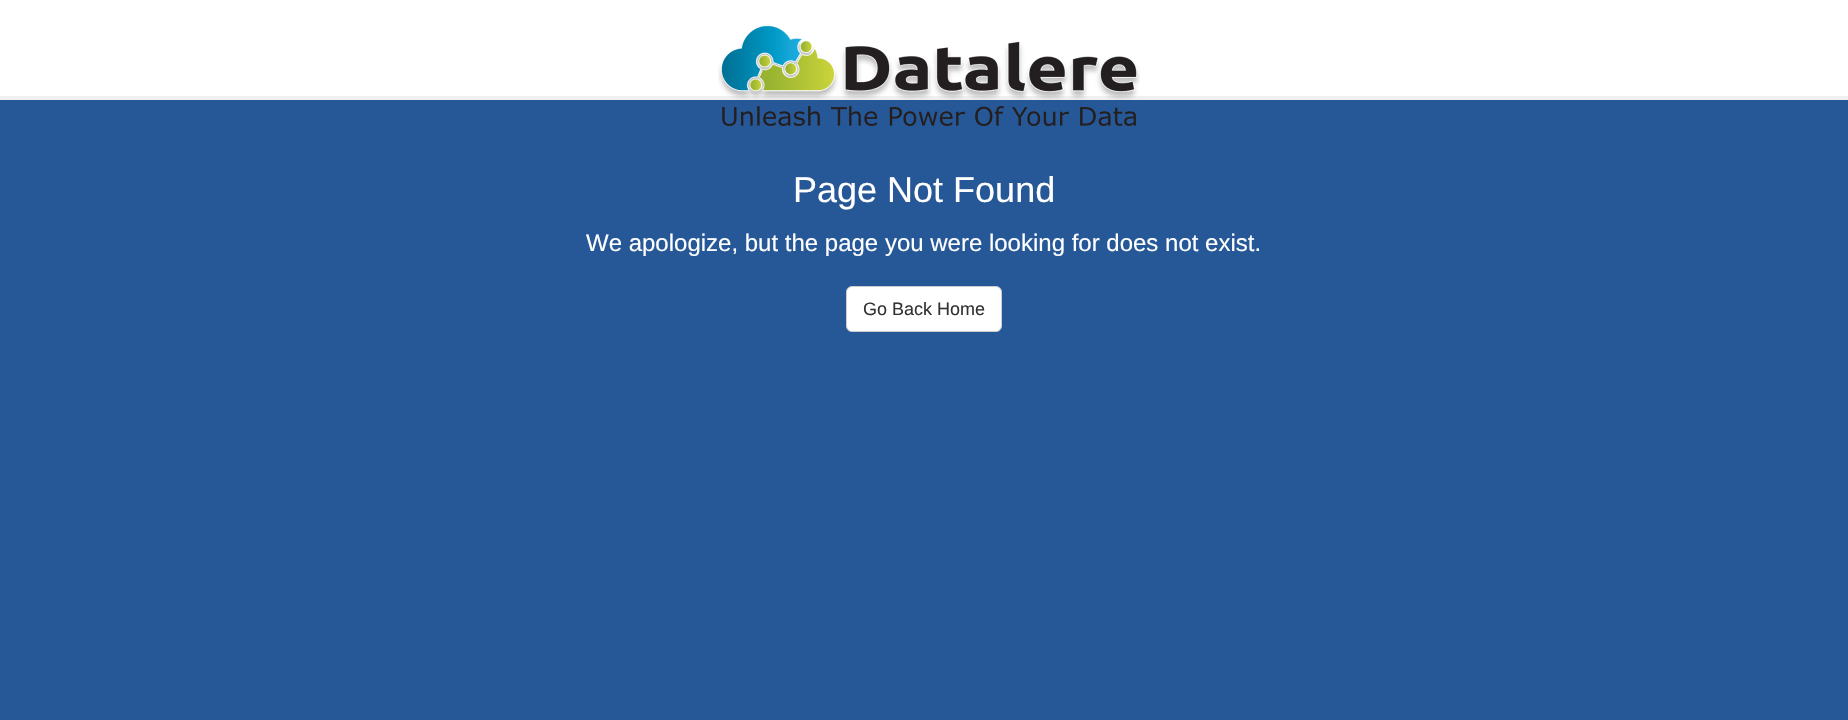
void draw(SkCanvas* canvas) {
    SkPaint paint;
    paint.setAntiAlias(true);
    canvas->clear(0xFF265897);
    paint.setColor(0xFFFFFFFF);
    canvas->drawRect(SkRect::MakeXYWH(0, 0, 1848, 96), paint);
    paint.setColor(0xFFF0F0F0);
    canvas->drawRect(SkRect::MakeXYWH(0, 96, 1848, 4), paint);
    canvas->drawImageRect(SkImages::DeferredFromEncodedData(SkData::MakeFromFileName("img1.png")), SkRect::MakeXYWH(718, 26, 422, 100), SkSamplingOptions());
    SkFont font1(fontMgr->matchFamilyStyle("Liberation Sans", SkFontStyle::Normal()), 36);
    font1.setSubpixel(true);
    paint.setColor(0xFFFFFFFF);
    canvas->drawString("Page Not Found", 793, 202, font1, paint);
    SkFont font2(fontMgr->matchFamilyStyle("Liberation Sans", SkFontStyle::Normal()), 24);
    font2.setSubpixel(true);
    canvas->drawString("We apologize, but the page you were looking for does not exist.", 586, 251, font2, paint);
    canvas->drawRoundRect(SkRect::MakeXYWH(846.5f, 286.5f, 155, 45), 5.5f, 5.5f, paint);
    paint.setStyle(SkPaint::kStroke_Style);
    paint.setStrokeWidth(1);
    paint.setColor(0xFFCCCCCC);
    canvas->drawRoundRect(SkRect::MakeXYWH(846.5f, 286.5f, 155, 45), 5.5f, 5.5f, paint);
    SkFont font3(fontMgr->matchFamilyStyle("Liberation Sans", SkFontStyle::Normal()), 18);
    font3.setSubpixel(true);
    paint.setStyle(SkPaint::kFill_Style);
    paint.setColor(0xFF333333);
    canvas->drawString("Go Back Home", 863, 315, font3, paint);
}
